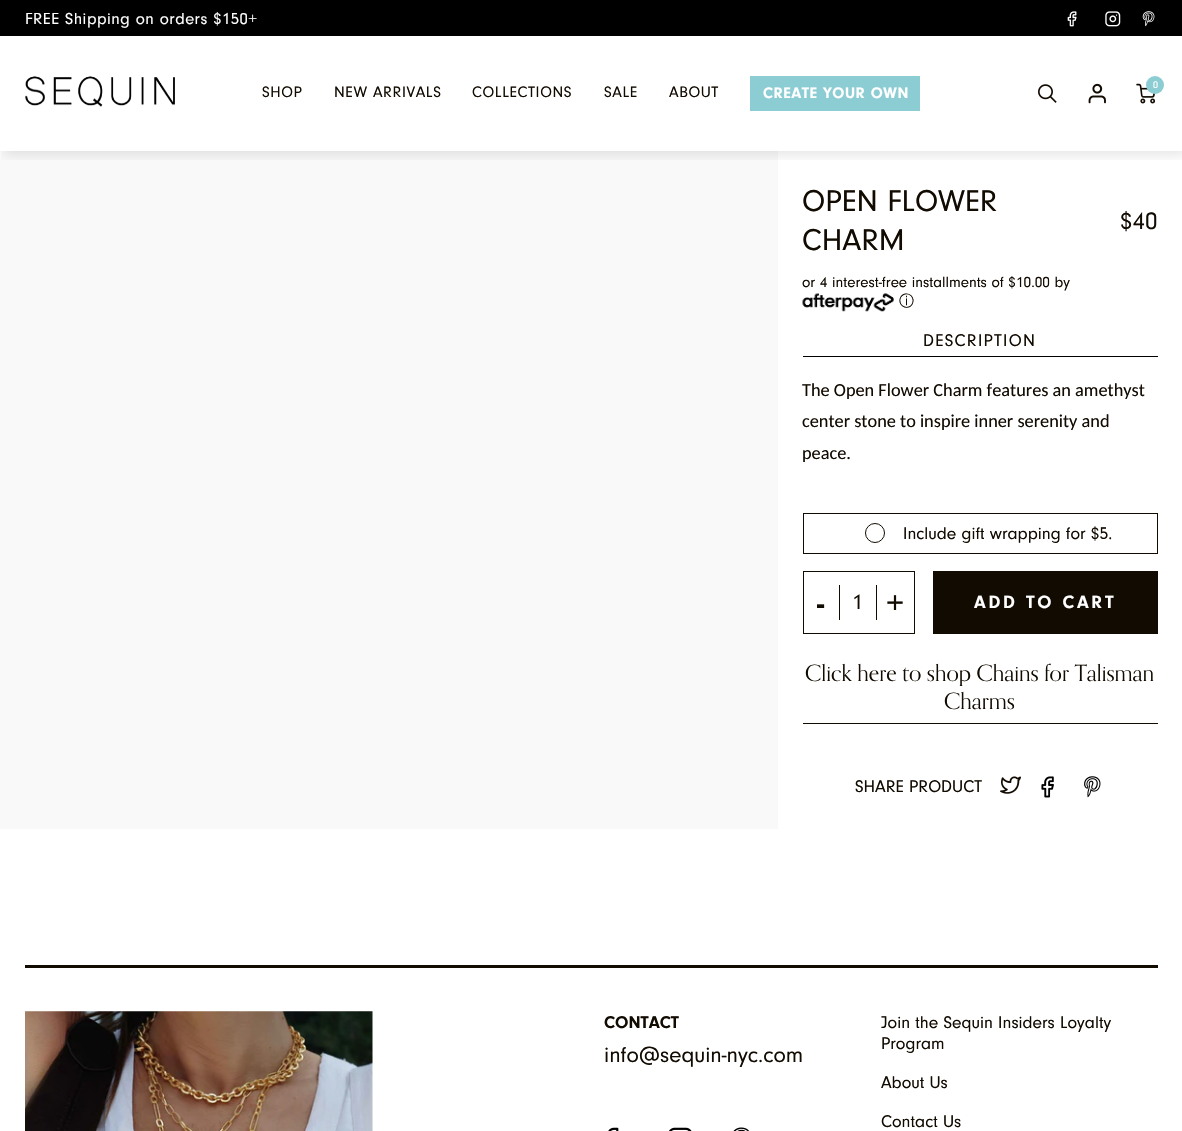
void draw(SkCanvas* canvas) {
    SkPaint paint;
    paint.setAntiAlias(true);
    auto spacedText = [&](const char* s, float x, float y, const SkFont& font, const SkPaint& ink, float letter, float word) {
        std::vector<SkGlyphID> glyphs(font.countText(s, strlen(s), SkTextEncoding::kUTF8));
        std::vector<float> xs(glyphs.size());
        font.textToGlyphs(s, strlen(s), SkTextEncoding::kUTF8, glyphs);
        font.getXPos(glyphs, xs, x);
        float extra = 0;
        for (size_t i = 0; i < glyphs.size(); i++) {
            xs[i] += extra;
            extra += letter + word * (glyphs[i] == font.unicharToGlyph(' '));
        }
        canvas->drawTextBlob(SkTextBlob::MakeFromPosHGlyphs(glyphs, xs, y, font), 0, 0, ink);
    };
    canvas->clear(0xFFFFFFFF);
    paint.setColor(0xFFF9F9F9);
    canvas->drawRect(SkRect::MakeXYWH(0, 151, 778, 678), paint);
    canvas->save();
    canvas->clipRect(SkRect::MakeXYWH(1, 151, 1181, 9));
    paint.setColor(0x1A000000);
    paint.setMaskFilter(SkMaskFilter::MakeBlur(kNormal_SkBlurStyle, 6));
    canvas->drawRect(SkRect::MakeXYWH(4, 4, 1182, 151), paint);
    paint.setMaskFilter(nullptr);
    canvas->restore();
    paint.setColor(0xFF000000);
    canvas->drawRect(SkRect::MakeXYWH(0, 0, 1182, 36), paint);
    SkFont font1(fontMgr->matchFamilyStyle("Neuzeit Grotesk", SkFontStyle::Normal()), 16.6f);
    font1.setSubpixel(true);
    paint.setColor(0xFFFFFFFF);
    spacedText("FREE Shipping on orders $150+", 25, 24, font1, paint, 0.5f, 0);
    canvas->drawImageRect(SkImages::DeferredFromEncodedData(SkData::MakeFromFileName("img1.png")), SkRect::MakeXYWH(1067, 11, 10, 16), SkSamplingOptions());
    canvas->drawImageRect(SkImages::DeferredFromEncodedData(SkData::MakeFromFileName("img2.png")), SkRect::MakeXYWH(1105, 11, 16, 16), SkSamplingOptions());
    canvas->drawImageRect(SkImages::DeferredFromEncodedData(SkData::MakeFromFileName("img3.png")), SkRect::MakeXYWH(1142, 11, 13, 16), SkSamplingOptions());
    canvas->drawImageRect(SkImages::DeferredFromEncodedData(SkData::MakeFromFileName("img4.png")), SkRect::MakeXYWH(25, 76, 150, 31), SkSamplingOptions());
    canvas->drawImageRect(SkImages::DeferredFromEncodedData(SkData::MakeFromFileName("img5.png")), SkRect::MakeXYWH(1038, 84, 19, 19), SkSamplingOptions());
    canvas->drawImageRect(SkImages::DeferredFromEncodedData(SkData::MakeFromFileName("img6.png")), SkRect::MakeXYWH(1088, 83, 18, 21), SkSamplingOptions());
    canvas->drawImageRect(SkImages::DeferredFromEncodedData(SkData::MakeFromFileName("img7.png")), SkRect::MakeXYWH(1136, 83, 20, 21), SkSamplingOptions());
    paint.setColor(0xFF8CCCD3);
    canvas->drawCircle(1155, 85, 9, paint);
    SkFont font2(fontMgr->matchFamilyStyle("Neuzeit Grotesk", SkFontStyle::Normal()), 10);
    font2.setSubpixel(true);
    paint.setColor(0xFFFFFFFF);
    canvas->drawString("0", 1153, 88, font2, paint);
    SkFont font3(fontMgr->matchFamilyStyle("Neuzeit Grotesk", SkFontStyle::Normal()), 15.75f);
    font3.setSubpixel(true);
    paint.setColor(0xFF120B02);
    spacedText("SHOP", 262, 97, font3, paint, 0.6f, 0);
    spacedText("NEW ARRIVALS", 334, 97, font3, paint, 0.6f, 0);
    spacedText("COLLECTIONS", 472, 97, font3, paint, 0.6f, 0);
    spacedText("SALE", 604, 97, font3, paint, 0.6f, 0);
    spacedText("ABOUT", 669, 97, font3, paint, 0.6f, 0);
    paint.setColor(0xFF8CCCD3);
    canvas->drawRect(SkRect::MakeXYWH(750, 76, 170, 35), paint);
    SkFont font4(fontMgr->matchFamilyStyle("Neuzeit Grotesk", SkFontStyle::Bold()), 15.75f);
    font4.setSubpixel(true);
    paint.setColor(0xFFFFFFFF);
    spacedText("CREATE YOUR OWN", 763, 98, font4, paint, 0.6f, 0);
    SkFont font5(fontMgr->matchFamilyStyle("Neuzeit Grotesk", SkFontStyle::Normal()), 31.25f);
    font5.setSubpixel(true);
    paint.setColor(0xFF120B02);
    canvas->drawString("OPEN FLOWER", 802, 211, font5, paint);
    canvas->drawString("CHARM", 802, 250, font5, paint);
    SkFont font6(fontMgr->matchFamilyStyle("Neuzeit Grotesk", SkFontStyle::Normal()), 25);
    font6.setSubpixel(true);
    canvas->drawString("$40", 1120, 229, font6, paint);
    SkFont font7(fontMgr->matchFamilyStyle("Neuzeit Grotesk", SkFontStyle::Normal()), 15.25f);
    font7.setSubpixel(true);
    canvas->drawString("or 4 interest-free installments of $10.00 by", 802, 287, font7, paint);
    canvas->drawImageRect(SkImages::DeferredFromEncodedData(SkData::MakeFromFileName("img8.png")), SkRect::MakeXYWH(802, 293, 92, 19), SkSamplingOptions());
    SkFont font8(fontMgr->matchFamilyStyle("WenQuanYi Zen Hei", SkFontStyle(500, SkFontStyle::kNormal_Width, SkFontStyle::kUpright_Slant)), 15);
    font8.setSubpixel(true);
    canvas->drawString("ⓘ", 899, 306, font8, paint);
    paint.setColor(0xFF000000);
    canvas->drawRect(SkRect::MakeXYWH(803, 356, 355, 1), paint);
    SkFont font9(fontMgr->matchFamilyStyle("Neuzeit Grotesk", SkFontStyle::Normal()), 17.5f);
    font9.setSubpixel(true);
    paint.setColor(0xFF120B02);
    spacedText("DESCRIPTION", 923, 346, font9, paint, 1.25f, 0);
    SkFont font10(fontMgr->matchFamilyStyle("Carlito", SkFontStyle::Normal()), 18.3f);
    font10.setSubpixel(true);
    canvas->drawString("The Open Flower Charm features an amethyst", 802, 396, font10, paint);
    canvas->drawString("center stone to inspire inner serenity and", 802, 427, font10, paint);
    canvas->drawString("peace.", 802, 459, font10, paint);
    paint.setStyle(SkPaint::kStroke_Style);
    paint.setStrokeWidth(1);
    canvas->drawRect(SkRect::MakeXYWH(803.5f, 513.5f, 354, 40), paint);
    canvas->drawCircle(875, 533, 9.5f, paint);
    paint.setStyle(SkPaint::kFill_Style);
    canvas->drawString("Include gift wrapping for $5.", 903, 539, font9, paint);
    paint.setStyle(SkPaint::kStroke_Style);
    canvas->drawRect(SkRect::MakeXYWH(803.5f, 571.5f, 111, 62), paint);
    paint.setStyle(SkPaint::kFill_Style);
    canvas->drawRect(SkRect::MakeXYWH(839, 585, 1, 35), paint);
    SkFont font11(fontMgr->matchFamilyStyle("Neuzeit Grotesk", SkFontStyle::Bold()), 32);
    font11.setSubpixel(true);
    canvas->drawString("-", 817, 614, font11, paint);
    SkFont font12(fontMgr->matchFamilyStyle("Neuzeit Grotesk", SkFontStyle::Normal()), 22);
    font12.setSubpixel(true);
    canvas->drawString("1", 852, 609, font12, paint);
    canvas->drawRect(SkRect::MakeXYWH(876, 585, 1, 35), paint);
    canvas->drawString("+", 887, 614, font11, paint);
    canvas->drawRect(SkRect::MakeXYWH(933, 571, 225, 63), paint);
    SkFont font13(fontMgr->matchFamilyStyle("Neuzeit Grotesk", SkFontStyle::Bold()), 18.5f);
    font13.setSubpixel(true);
    paint.setColor(0xFFFFFFFF);
    spacedText("ADD TO CART", 974, 608, font13, paint, 2.75f, 0);
    paint.setColor(0xFF120B02);
    canvas->drawRect(SkRect::MakeXYWH(803, 723, 355, 1), paint);
    SkFont font14(fontMgr->matchFamilyStyle("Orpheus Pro", SkFontStyle::Normal()), 22.5f);
    font14.setSubpixel(true);
    canvas->drawString("Click here to shop Chains for Talisman", 805, 681, font14, paint);
    canvas->drawString("Charms", 944, 709, font14, paint);
    canvas->drawString("SHARE PRODUCT", 855, 792, font9, paint);
    canvas->drawImageRect(SkImages::DeferredFromEncodedData(SkData::MakeFromFileName("img9.png")), SkRect::MakeXYWH(1000, 776, 21, 18), SkSamplingOptions());
    canvas->drawImageRect(SkImages::DeferredFromEncodedData(SkData::MakeFromFileName("img10.png")), SkRect::MakeXYWH(1041, 776, 13, 22), SkSamplingOptions());
    canvas->drawImageRect(SkImages::DeferredFromEncodedData(SkData::MakeFromFileName("img11.png")), SkRect::MakeXYWH(1084, 776, 17, 22), SkSamplingOptions());
    canvas->drawRect(SkRect::MakeXYWH(25, 965, 1133, 3), paint);
    canvas->drawImageRect(SkImages::DeferredFromEncodedData(SkData::MakeFromFileName("img12.png")), SkRect::MakeXYWH(25, 1011, 348, 120), SkSamplingOptions());
    SkFont font15(fontMgr->matchFamilyStyle("Neuzeit Grotesk", SkFontStyle::Bold()), 17.5f);
    font15.setSubpixel(true);
    canvas->drawString("CONTACT", 604, 1028, font15, paint);
    SkFont font16(fontMgr->matchFamilyStyle("Neuzeit Grotesk", SkFontStyle::Normal()), 22.5f);
    font16.setSubpixel(true);
    canvas->drawString("info@sequin-nyc.com", 604, 1062, font16, paint);
    canvas->drawImageRect(SkImages::DeferredFromEncodedData(SkData::MakeFromFileName("img13.png")), SkRect::MakeXYWH(608, 1127, 11, 4), SkSamplingOptions());
    canvas->drawImageRect(SkImages::DeferredFromEncodedData(SkData::MakeFromFileName("img14.png")), SkRect::MakeXYWH(669, 1127, 23, 4), SkSamplingOptions());
    canvas->drawImageRect(SkImages::DeferredFromEncodedData(SkData::MakeFromFileName("img15.png")), SkRect::MakeXYWH(733, 1127, 16, 4), SkSamplingOptions());
    canvas->drawString("Join the Sequin Insiders Loyalty", 881, 1028, font9, paint);
    canvas->drawString("Program", 881, 1049, font9, paint);
    canvas->drawString("About Us", 881, 1088, font9, paint);
    canvas->drawString("Contact Us", 881, 1127, font9, paint);
}
